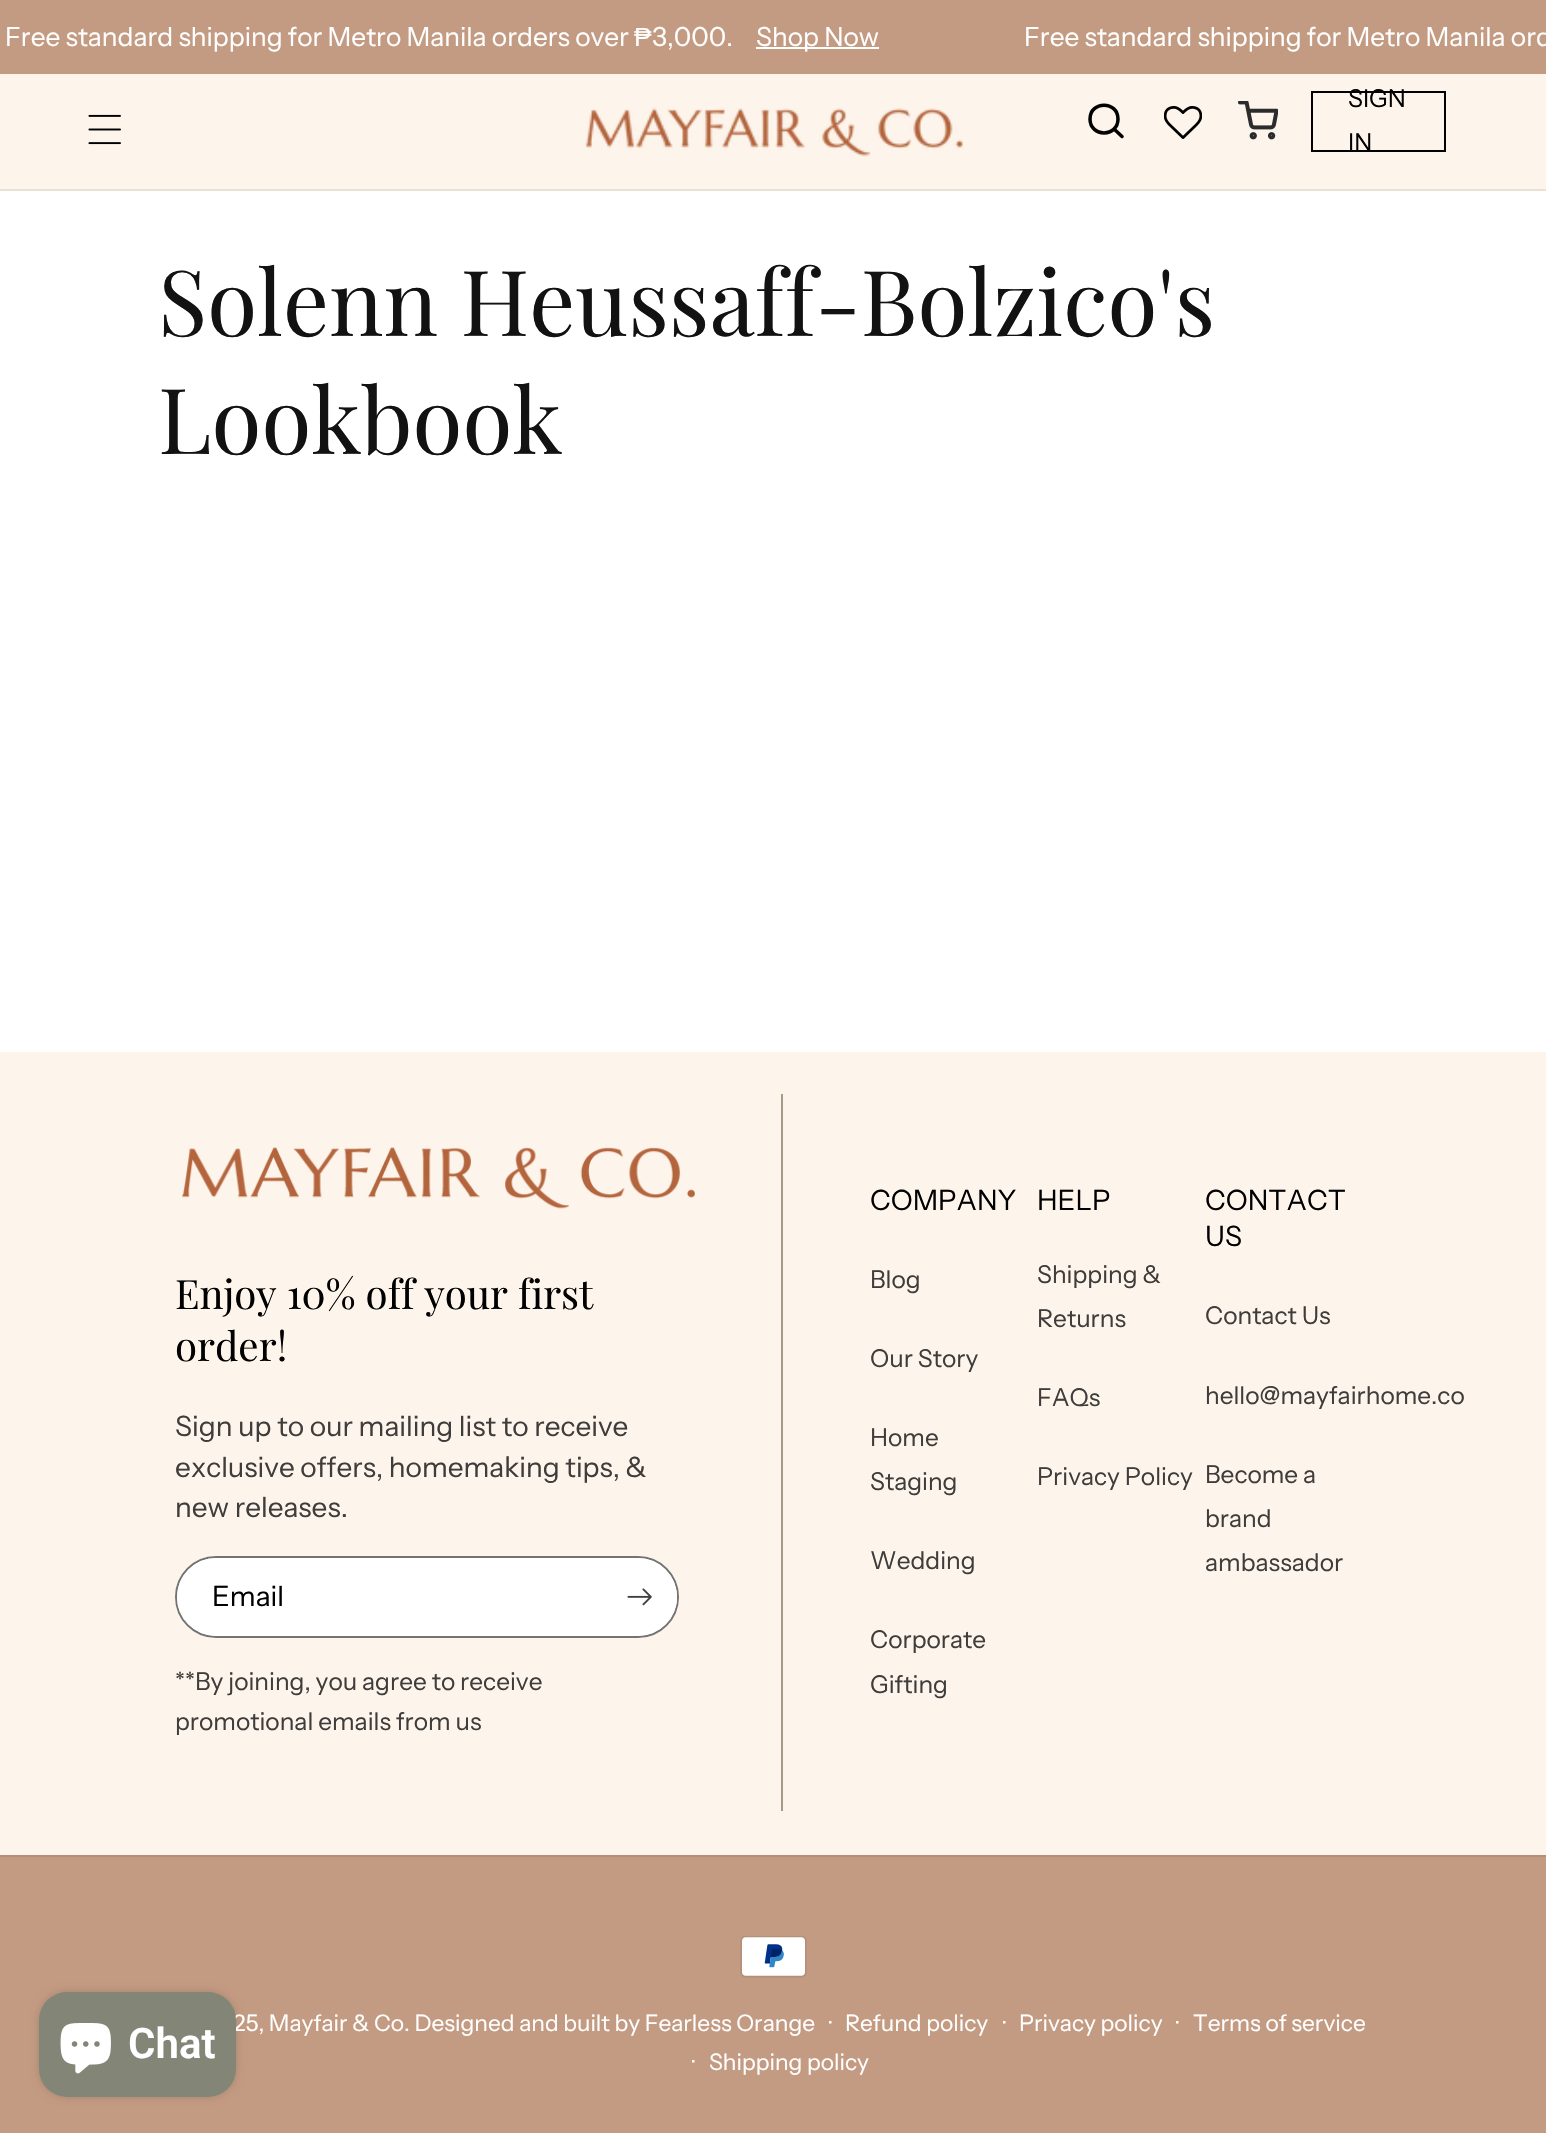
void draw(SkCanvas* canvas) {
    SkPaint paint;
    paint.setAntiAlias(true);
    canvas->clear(0xFFFFFFFF);
    paint.setColor(0xFFC39B82);
    canvas->drawRect(SkRect::MakeXYWH(0, 0, 1546, 74), paint);
    SkFont font1(fontMgr->matchFamilyStyle("Instrument Sans", SkFontStyle::Normal()), 26.25f);
    font1.setSubpixel(true);
    paint.setColor(0xFFFFFFFF);
    canvas->drawString("Free standard shipping for Metro Manila orders over", 5, 46, font1, paint);
    SkFont font2(fontMgr->matchFamilyStyle("Liberation Sans", SkFontStyle::Normal()), 26.25f);
    font2.setSubpixel(true);
    canvas->drawString("₱", 634, 46, font2, paint);
    canvas->drawString("3,000.", 652, 46, font1, paint);
    canvas->drawRect(SkRect::MakeXYWH(756, 47, 123, 2), paint);
    canvas->drawString("Shop Now", 756, 46, font1, paint);
    canvas->drawString("Free standard shipping for Metro Manila ord", 1024, 46, font1, paint);
    paint.setColor(0xFFFDF4EB);
    canvas->drawRect(SkRect::MakeXYWH(0, 74, 1546, 115), paint);
    paint.setColor(0xFFE9E0D8);
    canvas->drawRect(SkRect::MakeXYWH(0, 189, 1546, 2), paint);
    canvas->drawImageRect(SkImages::DeferredFromEncodedData(SkData::MakeFromFileName("img1.png")), SkRect::MakeXYWH(88, 114, 33, 31), SkSamplingOptions());
    canvas->drawImageRect(SkImages::DeferredFromEncodedData(SkData::MakeFromFileName("img2.png")), SkRect::MakeXYWH(585, 108, 378, 49), SkSamplingOptions());
    paint.setStyle(SkPaint::kStroke_Style);
    paint.setStrokeWidth(3.5f);
    paint.setStrokeCap(SkPaint::kRound_Cap);
    paint.setStrokeJoin(SkPaint::kRound_Join);
    paint.setColor(0xFF000000);
    canvas->drawPath(SkPathBuilder().moveTo(1114, 129).lineTo(1122, 136.5f).moveTo(1118, 119).cubicTo(1118, 137.5f, 1090, 137.5f, 1090, 119).cubicTo(1090, 100.5f, 1118, 100.5f, 1118, 119).close().detach(), paint);
    canvas->drawImageRect(SkImages::DeferredFromEncodedData(SkData::MakeFromFileName("img3.png")), SkRect::MakeXYWH(1164, 106, 38, 33), SkSamplingOptions());
    canvas->drawImageRect(SkImages::DeferredFromEncodedData(SkData::MakeFromFileName("img4.png")), SkRect::MakeXYWH(1238, 101, 40, 39), SkSamplingOptions());
    paint.setStrokeWidth(2);
    paint.setStrokeCap(SkPaint::kButt_Cap);
    paint.setStrokeJoin(SkPaint::kMiter_Join);
    canvas->drawRect(SkRect::MakeXYWH(1312, 92, 133, 59), paint);
    SkFont font3(fontMgr->matchFamilyStyle("Instrument Sans", SkFontStyle::Normal()), 24.5f);
    font3.setSubpixel(true);
    paint.setStyle(SkPaint::kFill_Style);
    canvas->drawString("SIGN", 1348, 107, font3, paint);
    canvas->drawString("IN", 1348, 151, font3, paint);
    SkFont font4(fontMgr->matchFamilyStyle("Playfair Display", SkFontStyle::Normal()), 91);
    font4.setSubpixel(true);
    paint.setColor(0xFF121212);
    canvas->drawString("Solenn Heussaff-Bolzico's", 158, 336, font4, paint);
    canvas->drawString("Lookbook", 158, 454, font4, paint);
    paint.setColor(0xFFC39B82);
    canvas->drawRect(SkRect::MakeXYWH(0, 1857, 1546, 276), paint);
    paint.setColor(0x26000000);
    paint.setMaskFilter(SkMaskFilter::MakeBlur(kNormal_SkBlurStyle, 4.5f));
    canvas->drawRoundRect(SkRect::MakeXYWH(39, 1992, 197, 105), 28, 28, paint);
    paint.setMaskFilter(nullptr);
    SkFont font5(fontMgr->matchFamilyStyle("Instrument Sans", SkFontStyle::Normal()), 22.75f);
    font5.setSubpixel(true);
    paint.setColor(0xFFFFFFFF);
    canvas->drawString("25, Mayfair & Co. Designed and built by Fearless Orange", 233, 2031, font5, paint);
    paint.setColor(0xFF838577);
    canvas->drawRoundRect(SkRect::MakeXYWH(39, 1992, 197, 105), 28, 28, paint);
    canvas->drawImageRect(SkImages::DeferredFromEncodedData(SkData::MakeFromFileName("img5.png")), SkRect::MakeXYWH(60, 2023, 51, 51), SkSamplingOptions());
    SkFont font6(fontMgr->matchFamilyStyle("Roboto", SkFontStyle(600, SkFontStyle::kNormal_Width, SkFontStyle::kUpright_Slant)), 42);
    font6.setSubpixel(true);
    paint.setColor(0xFFFFFFFF);
    canvas->drawString("Chat", 128, 2058, font6, paint);
    paint.setColor(0xFFFDF4EB);
    canvas->drawRect(SkRect::MakeXYWH(0, 1052, 1546, 803), paint);
    canvas->drawImageRect(SkImages::DeferredFromEncodedData(SkData::MakeFromFileName("img6.png")), SkRect::MakeXYWH(182, 1147, 513, 62), SkSamplingOptions());
    SkFont font7(fontMgr->matchFamilyStyle("Playfair Display", SkFontStyle::Normal()), 40.25f);
    font7.setSubpixel(true);
    paint.setColor(0xFF000000);
    canvas->drawString("Enjoy 10% off your first", 175, 1309, font7, paint);
    canvas->drawString("order!", 175, 1361, font7, paint);
    SkFont font8(fontMgr->matchFamilyStyle("Instrument Sans", SkFontStyle::Normal()), 28);
    font8.setSubpixel(true);
    paint.setColor(0xFF3F3D3B);
    canvas->drawString("Sign up to our mailing list to receive", 175, 1436, font8, paint);
    canvas->drawString("exclusive offers, homemaking tips, &", 175, 1477, font8, paint);
    canvas->drawString("new releases.", 175, 1517, font8, paint);
    paint.setColor(0xFFFFFFFF);
    canvas->drawRoundRect(SkRect::MakeXYWH(175, 1556, 504, 82), 41, 41, paint);
    paint.setStyle(SkPaint::kStroke_Style);
    paint.setColor(0x8C000000);
    canvas->drawRoundRect(SkRect::MakeXYWH(176, 1557, 502, 80), 40, 40, paint);
    paint.setStyle(SkPaint::kFill_Style);
    paint.setColor(0xFFFFFFFF);
    canvas->drawRoundRect(SkRect::MakeXYWH(177, 1558, 500, 78), 39, 39, paint);
    paint.setColor(0xFF000000);
    canvas->drawString("Email", 212, 1606, font8, paint);
    paint.setColor(0xFFFFFFFF);
    canvas->drawPath(SkPathBuilder().moveTo(600, 1565).lineTo(645, 1565).cubicTo(662.5f, 1565, 677, 1579.5f, 677, 1597).cubicTo(677, 1614.5f, 662.5f, 1629, 645, 1629).lineTo(600, 1629).close().detach(), paint);
    canvas->drawImageRect(SkImages::DeferredFromEncodedData(SkData::MakeFromFileName("img7.png")), SkRect::MakeXYWH(627, 1588, 25, 18), SkSamplingOptions());
    paint.setColor(0xFF3F3D3B);
    canvas->drawString("**By joining, you agree to receive", 175, 1690, font3, paint);
    canvas->drawString("promotional emails from us", 175, 1730, font3, paint);
    paint.setColor(0xFFA79B85);
    canvas->drawRect(SkRect::MakeXYWH(781, 1094, 2, 717), paint);
    paint.setColor(0xFF000000);
    canvas->drawString("COMPANY", 870, 1210, font8, paint);
    paint.setColor(0xFF3F3D3B);
    canvas->drawString("Blog", 870, 1288, font3, paint);
    canvas->drawString("Our Story", 870, 1367, font3, paint);
    canvas->drawString("Home", 870, 1446, font3, paint);
    canvas->drawString("Staging", 870, 1490, font3, paint);
    canvas->drawString("Wedding", 870, 1569, font3, paint);
    canvas->drawString("Corporate", 870, 1648, font3, paint);
    canvas->drawString("Gifting", 870, 1693, font3, paint);
    paint.setColor(0xFF000000);
    canvas->drawString("HELP", 1037, 1210, font8, paint);
    paint.setColor(0xFF3F3D3B);
    canvas->drawString("Shipping &", 1037, 1283, font3, paint);
    canvas->drawString("Returns", 1037, 1327, font3, paint);
    canvas->drawString("FAQs", 1037, 1406, font3, paint);
    canvas->drawString("Privacy Policy", 1037, 1485, font3, paint);
    paint.setColor(0xFF000000);
    canvas->drawString("CONTACT", 1205, 1210, font8, paint);
    canvas->drawString("US", 1205, 1246, font8, paint);
    paint.setColor(0xFF3F3D3B);
    canvas->drawString("Contact Us", 1205, 1324, font3, paint);
    canvas->drawString("hello@mayfairhome.co", 1205, 1404, font3, paint);
    canvas->drawString("Become a", 1205, 1483, font3, paint);
    canvas->drawString("brand", 1205, 1527, font3, paint);
    canvas->drawString("ambassador", 1205, 1571, font3, paint);
    paint.setColor(0xFFB38F78);
    canvas->drawRect(SkRect::MakeXYWH(0, 1855, 1546, 2), paint);
    canvas->drawImageRect(SkImages::DeferredFromEncodedData(SkData::MakeFromFileName("img8.png")), SkRect::MakeXYWH(740, 1936, 67, 42), SkSamplingOptions());
    paint.setColor(0xFFFFFFFF);
    canvas->drawString("·", 829, 2031, font5, paint);
    canvas->drawString("Refund policy", 845, 2031, font5, paint);
    canvas->drawString("·", 1003, 2031, font5, paint);
    canvas->drawString("Privacy policy", 1019, 2031, font5, paint);
    canvas->drawString("·", 1176, 2031, font5, paint);
    canvas->drawString("Terms of service", 1193, 2031, font5, paint);
    canvas->drawString("·", 692, 2070, font5, paint);
    canvas->drawString("Shipping policy", 709, 2070, font5, paint);
}
